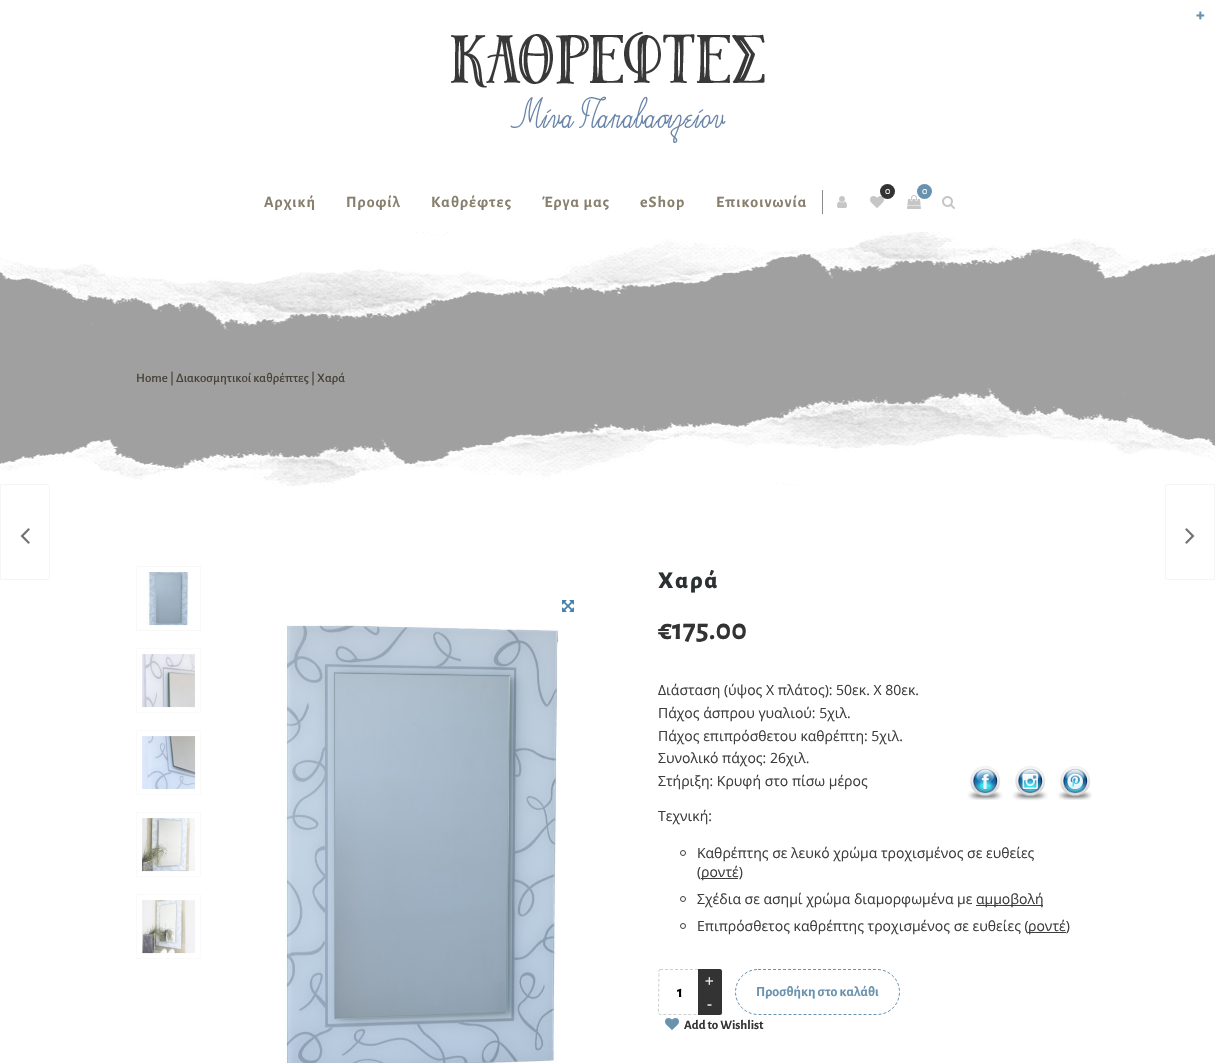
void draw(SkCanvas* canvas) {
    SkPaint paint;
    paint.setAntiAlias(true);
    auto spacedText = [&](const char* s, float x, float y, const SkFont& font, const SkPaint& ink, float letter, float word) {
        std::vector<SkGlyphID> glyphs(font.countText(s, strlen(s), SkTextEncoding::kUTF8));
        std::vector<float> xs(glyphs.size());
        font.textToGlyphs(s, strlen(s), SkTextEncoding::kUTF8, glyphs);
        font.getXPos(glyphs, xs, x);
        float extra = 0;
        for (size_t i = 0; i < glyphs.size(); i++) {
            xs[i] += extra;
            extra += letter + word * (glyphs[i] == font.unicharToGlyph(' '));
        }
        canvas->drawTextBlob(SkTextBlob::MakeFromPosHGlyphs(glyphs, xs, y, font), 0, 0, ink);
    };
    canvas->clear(0xFFFFFFFF);
    canvas->drawImageRect(SkImages::DeferredFromEncodedData(SkData::MakeFromFileName("img1.png")), SkRect::MakeXYWH(1196, 11, 9, 9), SkSamplingOptions());
    canvas->drawImageRect(SkImages::DeferredFromEncodedData(SkData::MakeFromFileName("img2.png")), SkRect::MakeXYWH(451, 31, 314, 112), SkSamplingOptions());
    paint.setColor(0xFF8B8B8B);
    canvas->drawRect(SkRect::MakeXYWH(822, 190, 1, 24), paint);
    canvas->drawImageRect(SkImages::DeferredFromEncodedData(SkData::MakeFromFileName("img3.png")), SkRect::MakeXYWH(837, 196, 10, 12), SkSamplingOptions());
    canvas->drawImageRect(SkImages::DeferredFromEncodedData(SkData::MakeFromFileName("img4.png")), SkRect::MakeXYWH(870, 196, 14, 12), SkSamplingOptions());
    paint.setColor(0xFF333333);
    canvas->drawCircle(887.5f, 191.5f, 7.5f, paint);
    SkFont font1(fontMgr->matchFamilyStyle("Alegreya Sans", SkFontStyle::Normal()), 10);
    font1.setSubpixel(true);
    paint.setColor(0xFFFFFFFF);
    canvas->drawString("0", 885, 194, font1, paint);
    canvas->drawImageRect(SkImages::DeferredFromEncodedData(SkData::MakeFromFileName("img5.png")), SkRect::MakeXYWH(907, 195, 14, 14), SkSamplingOptions());
    paint.setColor(0xFF6992AE);
    canvas->drawCircle(924.5f, 191.5f, 7.5f, paint);
    paint.setColor(0xFFFFFFFF);
    canvas->drawString("0", 922, 194, font1, paint);
    canvas->drawImageRect(SkImages::DeferredFromEncodedData(SkData::MakeFromFileName("img6.png")), SkRect::MakeXYWH(942, 196, 13, 13), SkSamplingOptions());
    SkFont font2(fontMgr->matchFamilyStyle("Alegreya Sans", SkFontStyle::Bold()), 16);
    font2.setSubpixel(true);
    paint.setColor(0xFF887F6E);
    spacedText("Αρχική", 264, 207, font2, paint, 1, 0);
    spacedText("Προφίλ", 346, 207, font2, paint, 1, 0);
    spacedText("Καθρέφτες", 431, 207, font2, paint, 1, 0);
    spacedText("Έργα μας", 542, 207, font2, paint, 1, 0);
    spacedText("eShop", 640, 207, font2, paint, 1, 0);
    spacedText("Επικοινωνία", 716, 207, font2, paint, 1, 0);
    paint.setColor(0xFFA0A0A0);
    canvas->drawRect(SkRect::MakeXYWH(0, 232, 1215, 254), paint);
    canvas->drawImageRect(SkImages::DeferredFromEncodedData(SkData::MakeFromFileName("img9.png")), SkRect::MakeXYWH(0, 388, 1215, 98), SkSamplingOptions());
    paint.setStyle(SkPaint::kStroke_Style);
    paint.setStrokeWidth(1);
    paint.setColor(0xFFF5F5F5);
    canvas->drawPath(SkPathBuilder().moveTo(0.5f, 484.5f).lineTo(47, 484.5f).cubicTo(48.5f, 484.5f, 49.5f, 485.5f, 49.5f, 487).lineTo(49.5f, 577).cubicTo(49.5f, 578.5f, 48.5f, 579.5f, 47, 579.5f).lineTo(0.5f, 579.5f).close().detach(), paint);
    canvas->drawImageRect(SkImages::DeferredFromEncodedData(SkData::MakeFromFileName("img7.png")), SkRect::MakeXYWH(20, 528, 10, 16), SkSamplingOptions());
    canvas->drawImageRect(SkImages::DeferredFromEncodedData(SkData::MakeFromFileName("img8.png")), SkRect::MakeXYWH(0, 232, 1215, 98), SkSamplingOptions());
    SkFont font3(fontMgr->matchFamilyStyle("Alegreya Sans", SkFontStyle(500, SkFontStyle::kNormal_Width, SkFontStyle::kUpright_Slant)), 13);
    font3.setSubpixel(true);
    paint.setStyle(SkPaint::kFill_Style);
    paint.setColor(0xFF474237);
    canvas->drawString("Home | Διακοσμητικοί καθρέπτες | Χαρά", 136, 382, font3, paint);
    paint.setStyle(SkPaint::kStroke_Style);
    paint.setColor(0xFFF8F8F8);
    canvas->drawRect(SkRect::MakeXYWH(136.5f, 566.5f, 64, 64), paint);
    canvas->drawImageRect(SkImages::DeferredFromEncodedData(SkData::MakeFromFileName("img10.png")), SkRect::MakeXYWH(144, 572, 45, 54), SkSamplingOptions());
    paint.setColor(0xFFFAFAFA);
    canvas->drawRect(SkRect::MakeXYWH(136.5f, 648.5f, 64, 64), paint);
    canvas->drawImageRect(SkImages::DeferredFromEncodedData(SkData::MakeFromFileName("img11.png")), SkRect::MakeXYWH(142, 654, 53, 54), SkSamplingOptions());
    canvas->drawRect(SkRect::MakeXYWH(136.5f, 730.5f, 64, 64), paint);
    canvas->drawImageRect(SkImages::DeferredFromEncodedData(SkData::MakeFromFileName("img12.png")), SkRect::MakeXYWH(142, 736, 54, 54), SkSamplingOptions());
    canvas->drawRect(SkRect::MakeXYWH(136.5f, 812.5f, 64, 64), paint);
    canvas->drawImageRect(SkImages::DeferredFromEncodedData(SkData::MakeFromFileName("img13.png")), SkRect::MakeXYWH(142, 818, 53, 54), SkSamplingOptions());
    canvas->drawRect(SkRect::MakeXYWH(136.5f, 894.5f, 64, 64), paint);
    canvas->drawImageRect(SkImages::DeferredFromEncodedData(SkData::MakeFromFileName("img14.png")), SkRect::MakeXYWH(142, 900, 53, 54), SkSamplingOptions());
    canvas->drawImageRect(SkImages::DeferredFromEncodedData(SkData::MakeFromFileName("img15.png")), SkRect::MakeXYWH(562, 600, 12, 12), SkSamplingOptions());
    canvas->drawImageRect(SkImages::DeferredFromEncodedData(SkData::MakeFromFileName("img16.png")), SkRect::MakeXYWH(282, 624, 276, 439), SkSamplingOptions());
    SkFont font4(fontMgr->matchFamilyStyle("Alegreya Sans", SkFontStyle(800, SkFontStyle::kNormal_Width, SkFontStyle::kUpright_Slant)), 24);
    font4.setSubpixel(true);
    paint.setStyle(SkPaint::kFill_Style);
    paint.setColor(0xFF2B3033);
    spacedText("Χαρά", 658, 588, font4, paint, 2, 0);
    SkFont font5(fontMgr->matchFamilyStyle("Alegreya Sans", SkFontStyle::Bold()), 30);
    font5.setSubpixel(true);
    paint.setColor(0xFF333333);
    canvas->drawString("€175.00", 658, 639, font5, paint);
    SkFont font6(fontMgr->matchFamilyStyle("Open Sans", SkFontStyle::Normal()), 14);
    font6.setSubpixel(true);
    paint.setColor(0xFF3D3D3D);
    canvas->drawString("Διάσταση (ύψος Χ πλάτος): 50εκ. Χ 80εκ.", 658, 695, font6, paint);
    canvas->drawString("Πάχος άσπρου γυαλιού: 5χιλ.", 658, 718, font6, paint);
    canvas->drawString("Πάχος επιπρόσθετου καθρέπτη: 5χιλ.", 658, 741, font6, paint);
    canvas->drawString("Συνολικό πάχος: 26χιλ.", 658, 763, font6, paint);
    canvas->drawString("Στήριξη: Κρυφή στο πίσω μέρος", 658, 786, font6, paint);
    canvas->drawString("Τεχνική:", 658, 821, font6, paint);
    paint.setStyle(SkPaint::kStroke_Style);
    canvas->drawCircle(683, 853, 2.5f, paint);
    paint.setStyle(SkPaint::kFill_Style);
    canvas->drawString("Καθρέπτης σε λευκό χρώμα τροχισμένος σε ευθείες", 697, 858, font6, paint);
    canvas->drawString("(", 697, 877, font6, paint);
    canvas->drawRect(SkRect::MakeXYWH(701, 878, 37, 1), paint);
    canvas->drawString("ροντέ)", 701, 877, font6, paint);
    paint.setStyle(SkPaint::kStroke_Style);
    canvas->drawCircle(683, 899, 2.5f, paint);
    paint.setStyle(SkPaint::kFill_Style);
    canvas->drawString("Σχέδια σε ασημί χρώμα διαμορφωμένα με", 697, 904, font6, paint);
    canvas->drawRect(SkRect::MakeXYWH(976, 905, 67, 1), paint);
    canvas->drawString("αμμοβολή", 976, 904, font6, paint);
    paint.setStyle(SkPaint::kStroke_Style);
    canvas->drawCircle(683, 926, 2.5f, paint);
    paint.setStyle(SkPaint::kFill_Style);
    canvas->drawString("Επιπρόσθετος καθρέπτης τροχισμένος σε ευθείες (", 697, 931, font6, paint);
    canvas->drawRect(SkRect::MakeXYWH(1028, 932, 38, 1), paint);
    canvas->drawString("ροντέ)", 1028, 931, font6, paint);
    paint.setStyle(SkPaint::kStroke_Style);
    paint.setColor(0xFFCECECE);
    paint.setPathEffect(SkDashPathEffect::Make({{3, 2}}, 0));
    canvas->drawPath(SkPathBuilder().moveTo(660, 969.5f).lineTo(693.5f, 969.5f).cubicTo(703, 969.5f, 701.5f, 968, 701.5f, 978).lineTo(701.5f, 1006).cubicTo(701.5f, 1016, 703, 1014.5f, 693.5f, 1014.5f).lineTo(660, 1014.5f).lineTo(658.5f, 1013.5f).lineTo(659, 970).close().detach(), paint);
    paint.setPathEffect(nullptr);
    paint.setStyle(SkPaint::kFill_Style);
    paint.setColor(0xFF333333);
    canvas->drawPath(SkPathBuilder().moveTo(698, 969).lineTo(720, 969).cubicTo(721, 969, 722, 970, 722, 971).lineTo(722, 992).lineTo(698, 992).close().detach(), paint);
    SkFont font7(fontMgr->matchFamilyStyle("Liberation Sans", SkFontStyle::Normal()), 15);
    font7.setSubpixel(true);
    paint.setColor(0xFFF5F5F5);
    canvas->drawString("+", 705, 986, font7, paint);
    paint.setColor(0xFF000000);
    canvas->drawString("1", 677, 997, font2, paint);
    paint.setColor(0xFF333333);
    canvas->drawPath(SkPathBuilder().moveTo(698, 992).lineTo(722, 992).lineTo(722, 1013).cubicTo(722, 1014, 721, 1015, 720, 1015).lineTo(698, 1015).close().detach(), paint);
    paint.setColor(0xFFF5F5F5);
    canvas->drawString("-", 707, 1009, font7, paint);
    paint.setStyle(SkPaint::kStroke_Style);
    paint.setColor(0xFF6992AE);
    paint.setPathEffect(SkDashPathEffect::Make({{3, 2}}, 0));
    canvas->drawPath(SkPathBuilder().moveTo(758, 969.5f).lineTo(877, 969.5f).cubicTo(889.5f, 969.5f, 899.5f, 979.5f, 899.5f, 992).cubicTo(899.5f, 1004.5f, 889.5f, 1014.5f, 877, 1014.5f).lineTo(758, 1014.5f).cubicTo(745.5f, 1014.5f, 735.5f, 1004.5f, 735.5f, 992).cubicTo(735.5f, 979.5f, 745.5f, 969.5f, 758, 969.5f).close().detach(), paint);
    paint.setPathEffect(nullptr);
    SkFont font8(fontMgr->matchFamilyStyle("Alegreya Sans", SkFontStyle::Bold()), 14);
    font8.setSubpixel(true);
    paint.setStyle(SkPaint::kFill_Style);
    canvas->drawString("Προσθήκη στο καλάθι", 756, 996, font8, paint);
    canvas->drawImageRect(SkImages::DeferredFromEncodedData(SkData::MakeFromFileName("img17.png")), SkRect::MakeXYWH(665, 1018, 14, 12), SkSamplingOptions());
    SkFont font9(fontMgr->matchFamilyStyle("Alegreya Sans", SkFontStyle::Bold()), 13);
    font9.setSubpixel(true);
    paint.setColor(0xFF333333);
    canvas->drawString("Add to Wishlist", 684, 1029, font9, paint);
    paint.setStyle(SkPaint::kStroke_Style);
    paint.setColor(0xFFF5F5F5);
    canvas->drawPath(SkPathBuilder().moveTo(1168, 484.5f).lineTo(1214.5f, 484.5f).lineTo(1214.5f, 579.5f).lineTo(1168, 579.5f).cubicTo(1166.5f, 579.5f, 1165.5f, 578.5f, 1165.5f, 577).lineTo(1165.5f, 487).cubicTo(1165.5f, 485.5f, 1166.5f, 484.5f, 1168, 484.5f).close().detach(), paint);
    canvas->drawImageRect(SkImages::DeferredFromEncodedData(SkData::MakeFromFileName("img18.png")), SkRect::MakeXYWH(1185, 528, 10, 16), SkSamplingOptions());
    canvas->drawImageRect(SkImages::DeferredFromEncodedData(SkData::MakeFromFileName("img19.png")), SkRect::MakeXYWH(967, 766, 36, 34), SkSamplingOptions());
    canvas->drawImageRect(SkImages::DeferredFromEncodedData(SkData::MakeFromFileName("img20.png")), SkRect::MakeXYWH(1012, 766, 36, 35), SkSamplingOptions());
    canvas->drawImageRect(SkImages::DeferredFromEncodedData(SkData::MakeFromFileName("img21.png")), SkRect::MakeXYWH(1058, 766, 34, 34), SkSamplingOptions());
}
